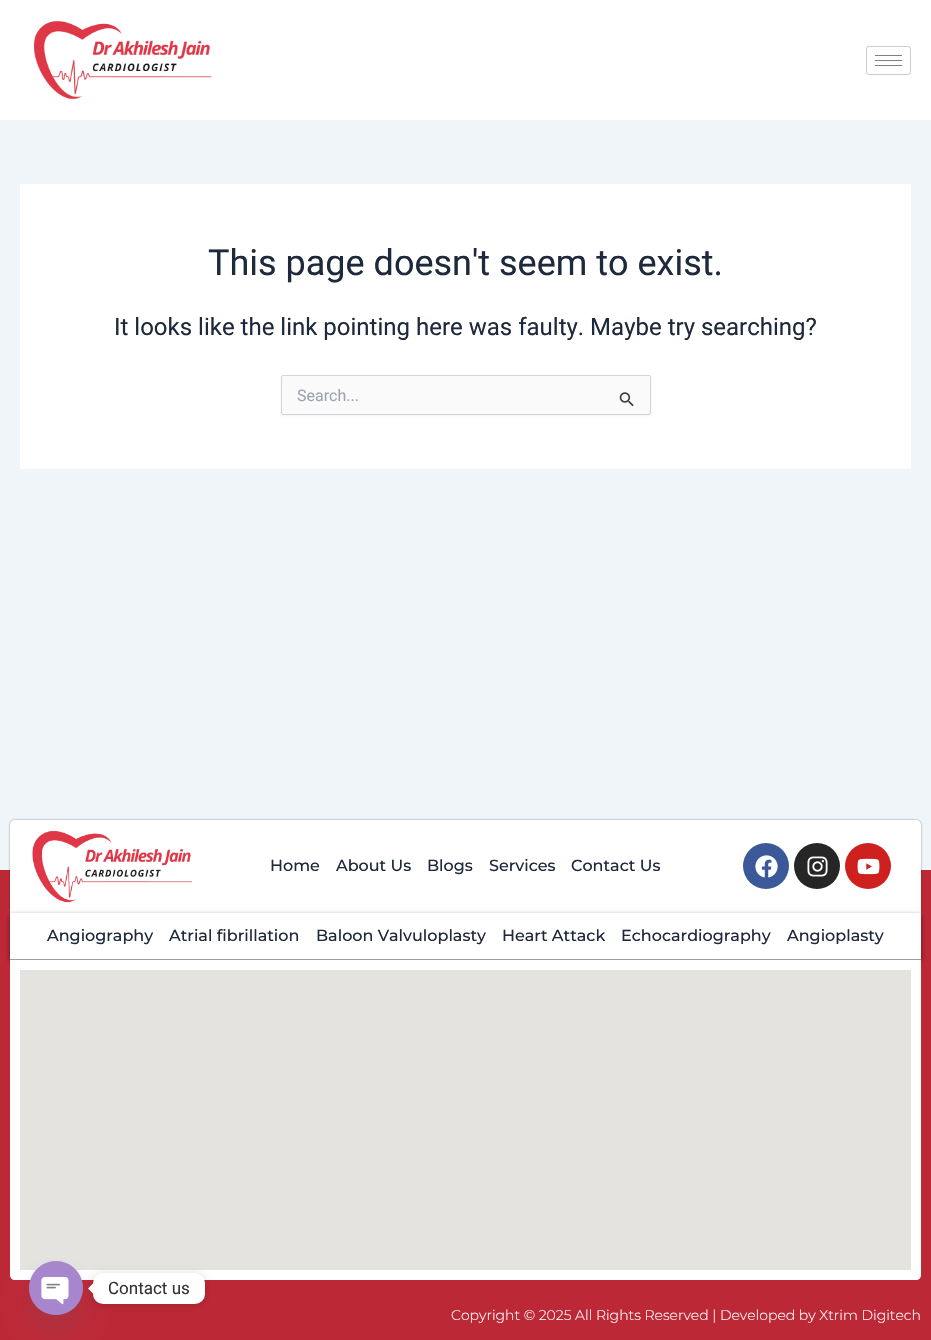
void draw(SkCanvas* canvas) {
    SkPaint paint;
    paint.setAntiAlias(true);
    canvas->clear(0xFFF0F5FA);
    paint.setColor(0xFFFFFFFF);
    canvas->drawRect(SkRect::MakeXYWH(0, 0, 931, 120), paint);
    canvas->drawImageRect(SkImages::DeferredFromEncodedData(SkData::MakeFromFileName("img1.png")), SkRect::MakeXYWH(34, 20, 178, 80), SkSamplingOptions());
    paint.setStyle(SkPaint::kStroke_Style);
    paint.setStrokeWidth(1);
    paint.setColor(0x33000000);
    canvas->drawRoundRect(SkRect::MakeXYWH(866.5f, 46.5f, 44, 28), 2.5f, 2.5f, paint);
    paint.setStyle(SkPaint::kFill_Style);
    paint.setColor(0xFF808080);
    canvas->drawRect(SkRect::MakeXYWH(875, 55, 27, 1), paint);
    canvas->drawRect(SkRect::MakeXYWH(875, 60, 27, 1), paint);
    canvas->drawRect(SkRect::MakeXYWH(875, 65, 27, 1), paint);
    paint.setColor(0xFFFFFFFF);
    canvas->drawRect(SkRect::MakeXYWH(20, 184, 891, 285), paint);
    SkFont font1(fontMgr->matchFamilyStyle("Roboto", SkFontStyle::Normal()), 36);
    font1.setSubpixel(true);
    paint.setColor(0xFF1E293B);
    canvas->drawString("This page doesn't seem to exist.", 208, 275, font1, paint);
    SkFont font2(fontMgr->matchFamilyStyle("Roboto", SkFontStyle::Normal()), 24);
    font2.setSubpixel(true);
    canvas->drawString("It looks like the link pointing here was faulty. Maybe try searching?", 114, 335, font2, paint);
    paint.setColor(0x0D000000);
    paint.setMaskFilter(SkMaskFilter::MakeBlur(kNormal_SkBlurStyle, 1));
    canvas->drawRoundRect(SkRect::MakeXYWH(281, 376, 370, 40), 2, 2, paint);
    paint.setMaskFilter(nullptr);
    paint.setColor(0xFFFAFAFA);
    canvas->drawRoundRect(SkRect::MakeXYWH(281.5f, 375.5f, 369, 39), 1.5f, 1.5f, paint);
    paint.setStyle(SkPaint::kStroke_Style);
    paint.setColor(0xFFD1D5DB);
    canvas->drawRoundRect(SkRect::MakeXYWH(281.5f, 375.5f, 369, 39), 1.5f, 1.5f, paint);
    SkFont font3(fontMgr->matchFamilyStyle("Roboto", SkFontStyle::Normal()), 16);
    font3.setSubpixel(true);
    paint.setStyle(SkPaint::kFill_Style);
    paint.setColor(0xFF9CA3AF);
    canvas->drawString("Search...", 297, 401, font3, paint);
    canvas->drawImageRect(SkImages::DeferredFromEncodedData(SkData::MakeFromFileName("img2.png")), SkRect::MakeXYWH(619, 392, 15, 15), SkSamplingOptions());
    paint.setColor(0xFFBD2836);
    canvas->drawRect(SkRect::MakeXYWH(0, 870, 931, 470), paint);
    paint.setColor(0x80000000);
    paint.setMaskFilter(SkMaskFilter::MakeBlur(kNormal_SkBlurStyle, 1));
    canvas->drawRoundRect(SkRect::MakeXYWH(10, 820, 911, 93), 5, 5, paint);
    paint.setMaskFilter(nullptr);
    paint.setColor(0xFFFFFFFF);
    canvas->drawPath(SkPathBuilder().moveTo(15, 820).lineTo(916, 820).cubicTo(919, 820, 921, 822, 921, 825).lineTo(921, 913).lineTo(10, 913).lineTo(10, 825).cubicTo(10, 822, 12, 820, 15, 820).close().detach(), paint);
    canvas->drawImageRect(SkImages::DeferredFromEncodedData(SkData::MakeFromFileName("img3.png")), SkRect::MakeXYWH(32, 830, 160, 73), SkSamplingOptions());
    SkFont font4(fontMgr->matchFamilyStyle("Montserrat", SkFontStyle(500, SkFontStyle::kNormal_Width, SkFontStyle::kUpright_Slant)), 16);
    font4.setSubpixel(true);
    paint.setColor(0xFF1E293B);
    canvas->drawString("Home", 270, 871, font4, paint);
    canvas->drawString("About Us", 336, 871, font4, paint);
    canvas->drawString("Blogs", 427, 871, font4, paint);
    canvas->drawString("Services", 489, 871, font4, paint);
    canvas->drawString("Contact Us", 571, 871, font4, paint);
    paint.setColor(0xFF3B5998);
    canvas->drawCircle(766, 866, 23, paint);
    canvas->drawImageRect(SkImages::DeferredFromEncodedData(SkData::MakeFromFileName("img4.png")), SkRect::MakeXYWH(755, 855, 23, 23), SkSamplingOptions());
    paint.setColor(0xFF262626);
    canvas->drawCircle(817, 866, 23, paint);
    canvas->drawImageRect(SkImages::DeferredFromEncodedData(SkData::MakeFromFileName("img5.png")), SkRect::MakeXYWH(807, 856, 21, 21), SkSamplingOptions());
    paint.setColor(0xFFCD201F);
    canvas->drawCircle(868, 866, 23, paint);
    canvas->drawImageRect(SkImages::DeferredFromEncodedData(SkData::MakeFromFileName("img6.png")), SkRect::MakeXYWH(857, 858, 23, 17), SkSamplingOptions());
    paint.setColor(0x80000000);
    paint.setMaskFilter(SkMaskFilter::MakeBlur(kNormal_SkBlurStyle, 2.5f));
    canvas->drawRect(SkRect::MakeXYWH(10, 915, 911, 46), paint);
    paint.setMaskFilter(nullptr);
    paint.setColor(0xFFFFFFFF);
    canvas->drawRect(SkRect::MakeXYWH(10, 913, 911, 46), paint);
    paint.setColor(0xFF1E293B);
    canvas->drawString("Angiography", 47, 941, font4, paint);
    canvas->drawString("Atrial fibrillation", 169, 941, font4, paint);
    canvas->drawString("Baloon Valvuloplasty", 316, 941, font4, paint);
    canvas->drawString("Heart Attack", 502, 941, font4, paint);
    canvas->drawString("Echocardiography", 621, 941, font4, paint);
    canvas->drawString("Angioplasty", 787, 941, font4, paint);
    paint.setColor(0xFFFFFFFF);
    canvas->drawPath(SkPathBuilder().moveTo(10, 959).lineTo(921, 959).lineTo(921, 1275).cubicTo(921, 1278, 919, 1280, 916, 1280).lineTo(15, 1280).cubicTo(12, 1280, 10, 1278, 10, 1275).close().detach(), paint);
    paint.setColor(0xFF9F9F9F);
    canvas->drawRect(SkRect::MakeXYWH(10, 959, 911, 1), paint);
    paint.setColor(0xFFE5E3DF);
    canvas->drawRect(SkRect::MakeXYWH(20, 970, 891, 300), paint);
    SkFont font5(fontMgr->matchFamilyStyle("Montserrat", SkFontStyle(300, SkFontStyle::kNormal_Width, SkFontStyle::kUpright_Slant)), 14);
    font5.setSubpixel(true);
    paint.setColor(0xFFFFFFFF);
    canvas->drawString("Copyright © 2025 All Rights Reserved | Developed by Xtrim Digitech", 451, 1320, font5, paint);
    paint.setColor(0x26000000);
    paint.setMaskFilter(SkMaskFilter::MakeBlur(kNormal_SkBlurStyle, 4));
    canvas->drawRoundRect(SkRect::MakeXYWH(93, 1274, 112, 31), 10, 10, paint);
    paint.setMaskFilter(nullptr);
    paint.setColor(0xFFFFFFFF);
    canvas->drawRoundRect(SkRect::MakeXYWH(93, 1273, 112, 31), 10, 10, paint);
    canvas->drawPath(SkPathBuilder().moveTo(93, 1283.5f).lineTo(93, 1293.5f).lineTo(88, 1288.5f).close().detach(), paint);
    paint.setColor(0x2949687E);
    paint.setMaskFilter(SkMaskFilter::MakeBlur(kNormal_SkBlurStyle, 12));
    canvas->drawRoundRect(SkRect::MakeXYWH(29, 1277, 54, 54), 27, 27, paint);
    paint.setMaskFilter(nullptr);
    canvas->drawImageRect(SkImages::DeferredFromEncodedData(SkData::MakeFromFileName("img7.png")), SkRect::MakeXYWH(29, 1261, 54, 54), SkSamplingOptions());
    SkFont font6(fontMgr->matchFamilyStyle("Roboto", SkFontStyle::Normal()), 17);
    font6.setSubpixel(true);
    paint.setColor(0xFF333333);
    canvas->drawString("Contact us", 108, 1294, font6, paint);
}
